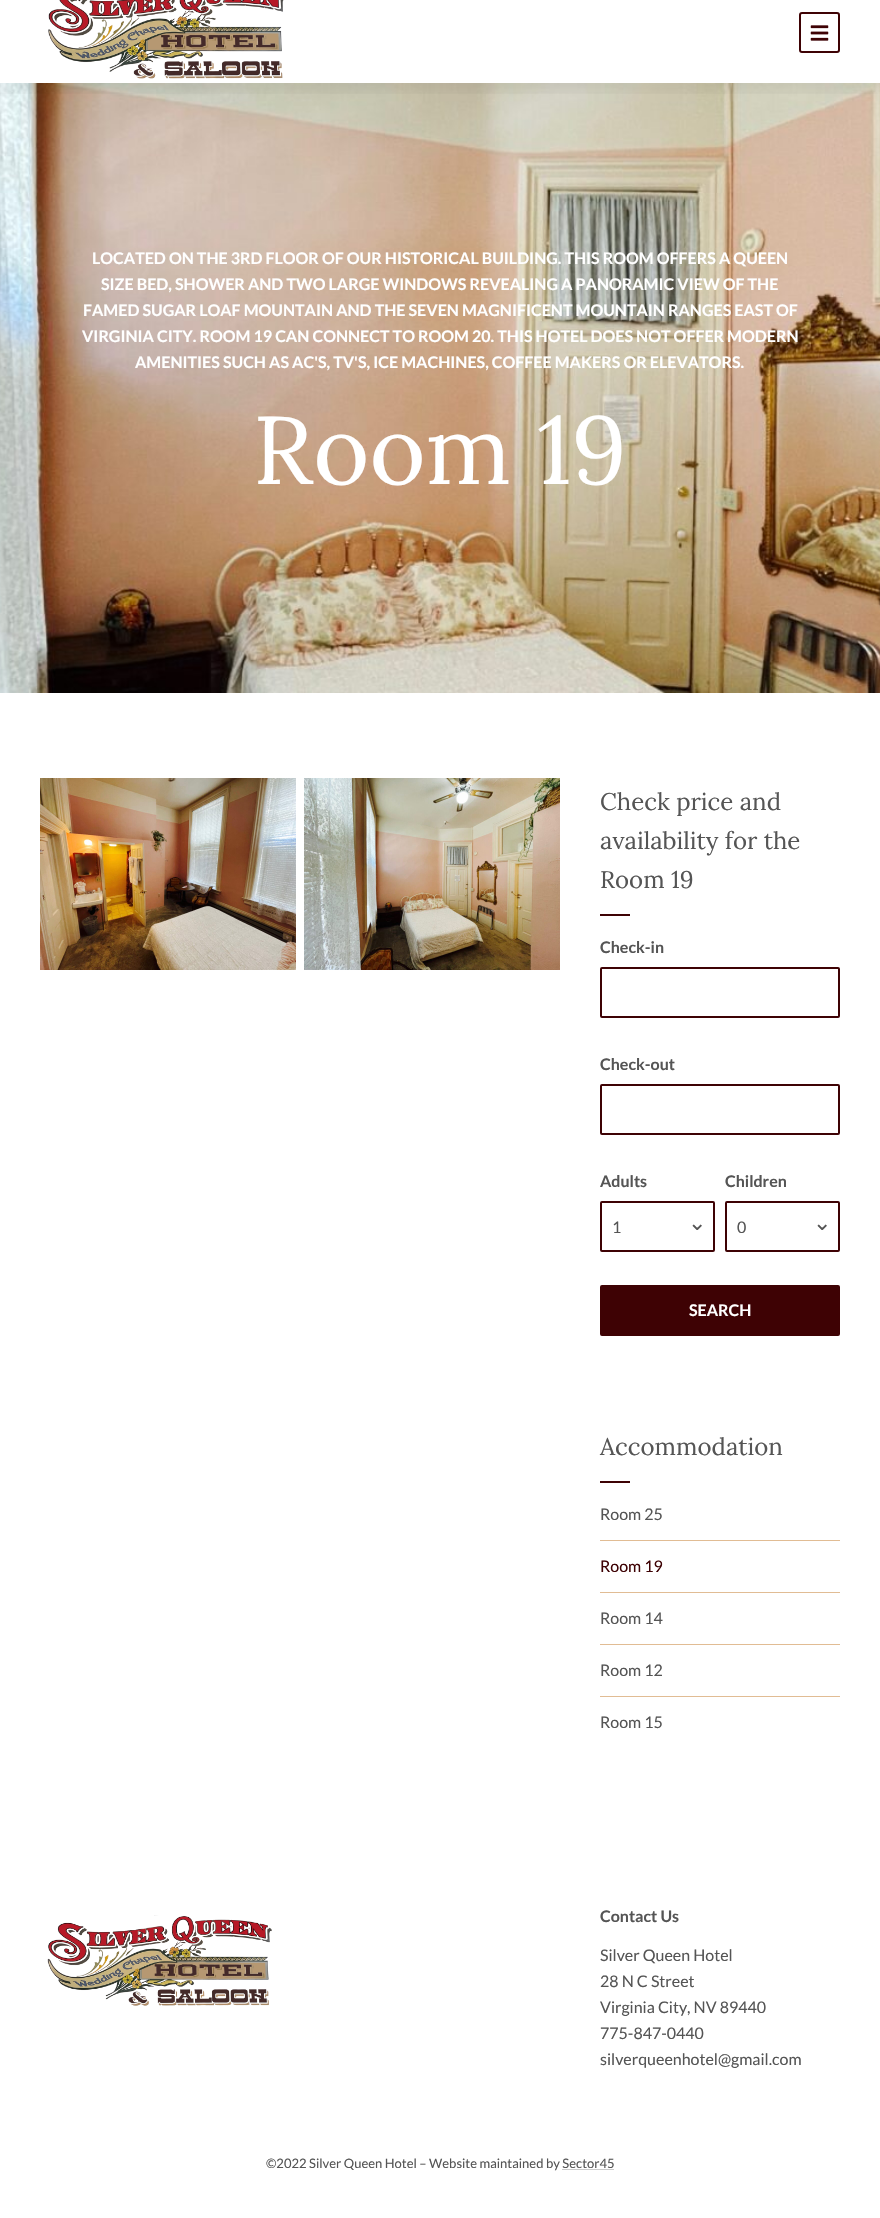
void draw(SkCanvas* canvas) {
    SkPaint paint;
    paint.setAntiAlias(true);
    canvas->clear(0xFFFFFFFF);
    canvas->drawImageRect(SkImages::DeferredFromEncodedData(SkData::MakeFromFileName("img3.png")), SkRect::MakeXYWH(0, 83, 880, 610), SkSamplingOptions());
    canvas->save();
    canvas->clipRect(SkRect::MakeXYWH(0, 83, 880, 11));
    paint.setColor(0x0D000000);
    paint.setMaskFilter(SkMaskFilter::MakeBlur(kNormal_SkBlurStyle, 5));
    canvas->drawRect(SkRect::MakeXYWH(0, -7, 880, 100), paint);
    paint.setMaskFilter(nullptr);
    canvas->restore();
    canvas->drawImageRect(SkImages::DeferredFromEncodedData(SkData::MakeFromFileName("img1.png")), SkRect::MakeXYWH(48, 0, 236, 79), SkSamplingOptions());
    paint.setStyle(SkPaint::kStroke_Style);
    paint.setStrokeWidth(2);
    paint.setColor(0xFF3E0204);
    canvas->drawRoundRect(SkRect::MakeXYWH(800, 13, 39, 39), 2, 2, paint);
    canvas->drawImageRect(SkImages::DeferredFromEncodedData(SkData::MakeFromFileName("img2.png")), SkRect::MakeXYWH(810, 25, 19, 16), SkSamplingOptions());
    SkFont font1(fontMgr->matchFamilyStyle("Lato", SkFontStyle::Bold()), 16);
    font1.setSubpixel(true);
    paint.setStyle(SkPaint::kFill_Style);
    paint.setColor(0xFFFFFFFF);
    canvas->drawString("LOCATED ON THE 3RD FLOOR OF OUR HISTORICAL BUILDING. THIS ROOM OFFERS A QUEEN", 92, 264, font1, paint);
    canvas->drawString("SIZE BED, SHOWER AND TWO LARGE WINDOWS REVEALING A PANORAMIC VIEW OF THE", 101, 290, font1, paint);
    canvas->drawString("FAMED SUGAR LOAF MOUNTAIN AND THE SEVEN MAGNIFICENT MOUNTAIN RANGES EAST OF", 83, 316, font1, paint);
    canvas->drawString("VIRGINIA CITY. ROOM 19 CAN CONNECT TO ROOM 20. THIS HOTEL DOES NOT OFFER MODERN", 82, 342, font1, paint);
    canvas->drawString("AMENITIES SUCH AS AC'S, TV'S, ICE MACHINES, COFFEE MAKERS OR ELEVATORS.", 135, 368, font1, paint);
    SkFont font2(fontMgr->matchFamilyStyle("Lora", SkFontStyle::Normal()), 96);
    font2.setSubpixel(true);
    canvas->drawString("Room 19", 253, 484, font2, paint);
    canvas->drawImageRect(SkImages::DeferredFromEncodedData(SkData::MakeFromFileName("img4.png")), SkRect::MakeXYWH(40, 778, 256, 192), SkSamplingOptions());
    canvas->drawImageRect(SkImages::DeferredFromEncodedData(SkData::MakeFromFileName("img5.png")), SkRect::MakeXYWH(304, 778, 256, 192), SkSamplingOptions());
    SkFont font3(fontMgr->matchFamilyStyle("Lora", SkFontStyle::Normal()), 24);
    font3.setSubpixel(true);
    paint.setColor(0xFF555555);
    canvas->drawString("Check price and", 600, 810, font3, paint);
    canvas->drawString("availability for the", 600, 849, font3, paint);
    canvas->drawString("Room 19", 600, 888, font3, paint);
    paint.setColor(0xFF3E0204);
    canvas->drawRect(SkRect::MakeXYWH(600, 914, 30, 2), paint);
    paint.setColor(0xFF555555);
    canvas->drawString("Check-in", 600, 953, font1, paint);
    paint.setStyle(SkPaint::kStroke_Style);
    paint.setColor(0xFF3E0204);
    canvas->drawRoundRect(SkRect::MakeXYWH(601, 968, 238, 49), 1, 1, paint);
    paint.setStyle(SkPaint::kFill_Style);
    paint.setColor(0xFF555555);
    canvas->drawString("Check-out", 600, 1070, font1, paint);
    paint.setStyle(SkPaint::kStroke_Style);
    paint.setColor(0xFF3E0204);
    canvas->drawRoundRect(SkRect::MakeXYWH(601, 1085, 238, 49), 1, 1, paint);
    paint.setStyle(SkPaint::kFill_Style);
    paint.setColor(0xFF555555);
    canvas->drawString("Adults", 600, 1187, font1, paint);
    paint.setStyle(SkPaint::kStroke_Style);
    paint.setColor(0xFF3E0204);
    canvas->drawRoundRect(SkRect::MakeXYWH(601, 1202, 113, 49), 1, 1, paint);
    SkFont font4(fontMgr->matchFamilyStyle("Lato", SkFontStyle::Normal()), 16);
    font4.setSubpixel(true);
    paint.setStyle(SkPaint::kFill_Style);
    paint.setColor(0xFF555555);
    canvas->drawString("1", 612, 1233, font4, paint);
    SkFont font5(fontMgr->matchFamilyStyle("DejaVu Sans", SkFontStyle::Normal()), 22);
    font5.setSubpixel(true);
    canvas->drawString("⌄", 688, 1230, font5, paint);
    canvas->drawString("Children", 725, 1187, font1, paint);
    paint.setStyle(SkPaint::kStroke_Style);
    paint.setColor(0xFF3E0204);
    canvas->drawRoundRect(SkRect::MakeXYWH(726, 1202, 113, 49), 1, 1, paint);
    paint.setStyle(SkPaint::kFill_Style);
    paint.setColor(0xFF555555);
    canvas->drawString("0", 737, 1233, font4, paint);
    canvas->drawString("⌄", 813, 1230, font5, paint);
    paint.setColor(0xFF3E0204);
    canvas->drawRoundRect(SkRect::MakeXYWH(601, 1286, 238, 49), 1, 1, paint);
    paint.setStyle(SkPaint::kStroke_Style);
    canvas->drawRoundRect(SkRect::MakeXYWH(601, 1286, 238, 49), 1, 1, paint);
    paint.setStyle(SkPaint::kFill_Style);
    paint.setColor(0xFFFFFFFF);
    canvas->drawString("SEARCH", 689, 1316, font1, paint);
    paint.setColor(0xFF555555);
    canvas->drawString("Accommodation", 600, 1455, font3, paint);
    paint.setColor(0xFF3E0204);
    canvas->drawRect(SkRect::MakeXYWH(600, 1481, 30, 2), paint);
    paint.setColor(0xFFE1BC94);
    canvas->drawRect(SkRect::MakeXYWH(600, 1540, 240, 1), paint);
    paint.setColor(0xFF555555);
    canvas->drawString("Room 25", 600, 1520, font4, paint);
    paint.setColor(0xFFE1BC94);
    canvas->drawRect(SkRect::MakeXYWH(600, 1592, 240, 1), paint);
    paint.setColor(0xFF3E0204);
    canvas->drawString("Room 19", 600, 1572, font4, paint);
    paint.setColor(0xFFE1BC94);
    canvas->drawRect(SkRect::MakeXYWH(600, 1644, 240, 1), paint);
    paint.setColor(0xFF555555);
    canvas->drawString("Room 14", 600, 1624, font4, paint);
    paint.setColor(0xFFE1BC94);
    canvas->drawRect(SkRect::MakeXYWH(600, 1696, 240, 1), paint);
    paint.setColor(0xFF555555);
    canvas->drawString("Room 12", 600, 1676, font4, paint);
    canvas->drawString("Room 15", 600, 1728, font4, paint);
    canvas->drawImageRect(SkImages::DeferredFromEncodedData(SkData::MakeFromFileName("img6.png")), SkRect::MakeXYWH(47, 1915, 225, 91), SkSamplingOptions());
    canvas->drawString("Contact Us", 600, 1922, font1, paint);
    canvas->drawString("Silver Queen Hotel", 600, 1961, font4, paint);
    canvas->drawString("28 N C Street", 600, 1987, font4, paint);
    canvas->drawString("Virginia City, NV 89440", 600, 2013, font4, paint);
    canvas->drawString("775-847-0440", 600, 2039, font4, paint);
    canvas->drawString("silverqueenhotel@gmail.com", 600, 2065, font4, paint);
    SkFont font6(fontMgr->matchFamilyStyle("Lato", SkFontStyle::Normal()), 13);
    font6.setSubpixel(true);
    canvas->drawString("©2022 Silver Queen Hotel – Website maintained by Sector45", 266, 2168, font6, paint);
    paint.setColor(0xFFCCCCCC);
    canvas->drawRect(SkRect::MakeXYWH(562, 2169, 52, 1), paint);
}
